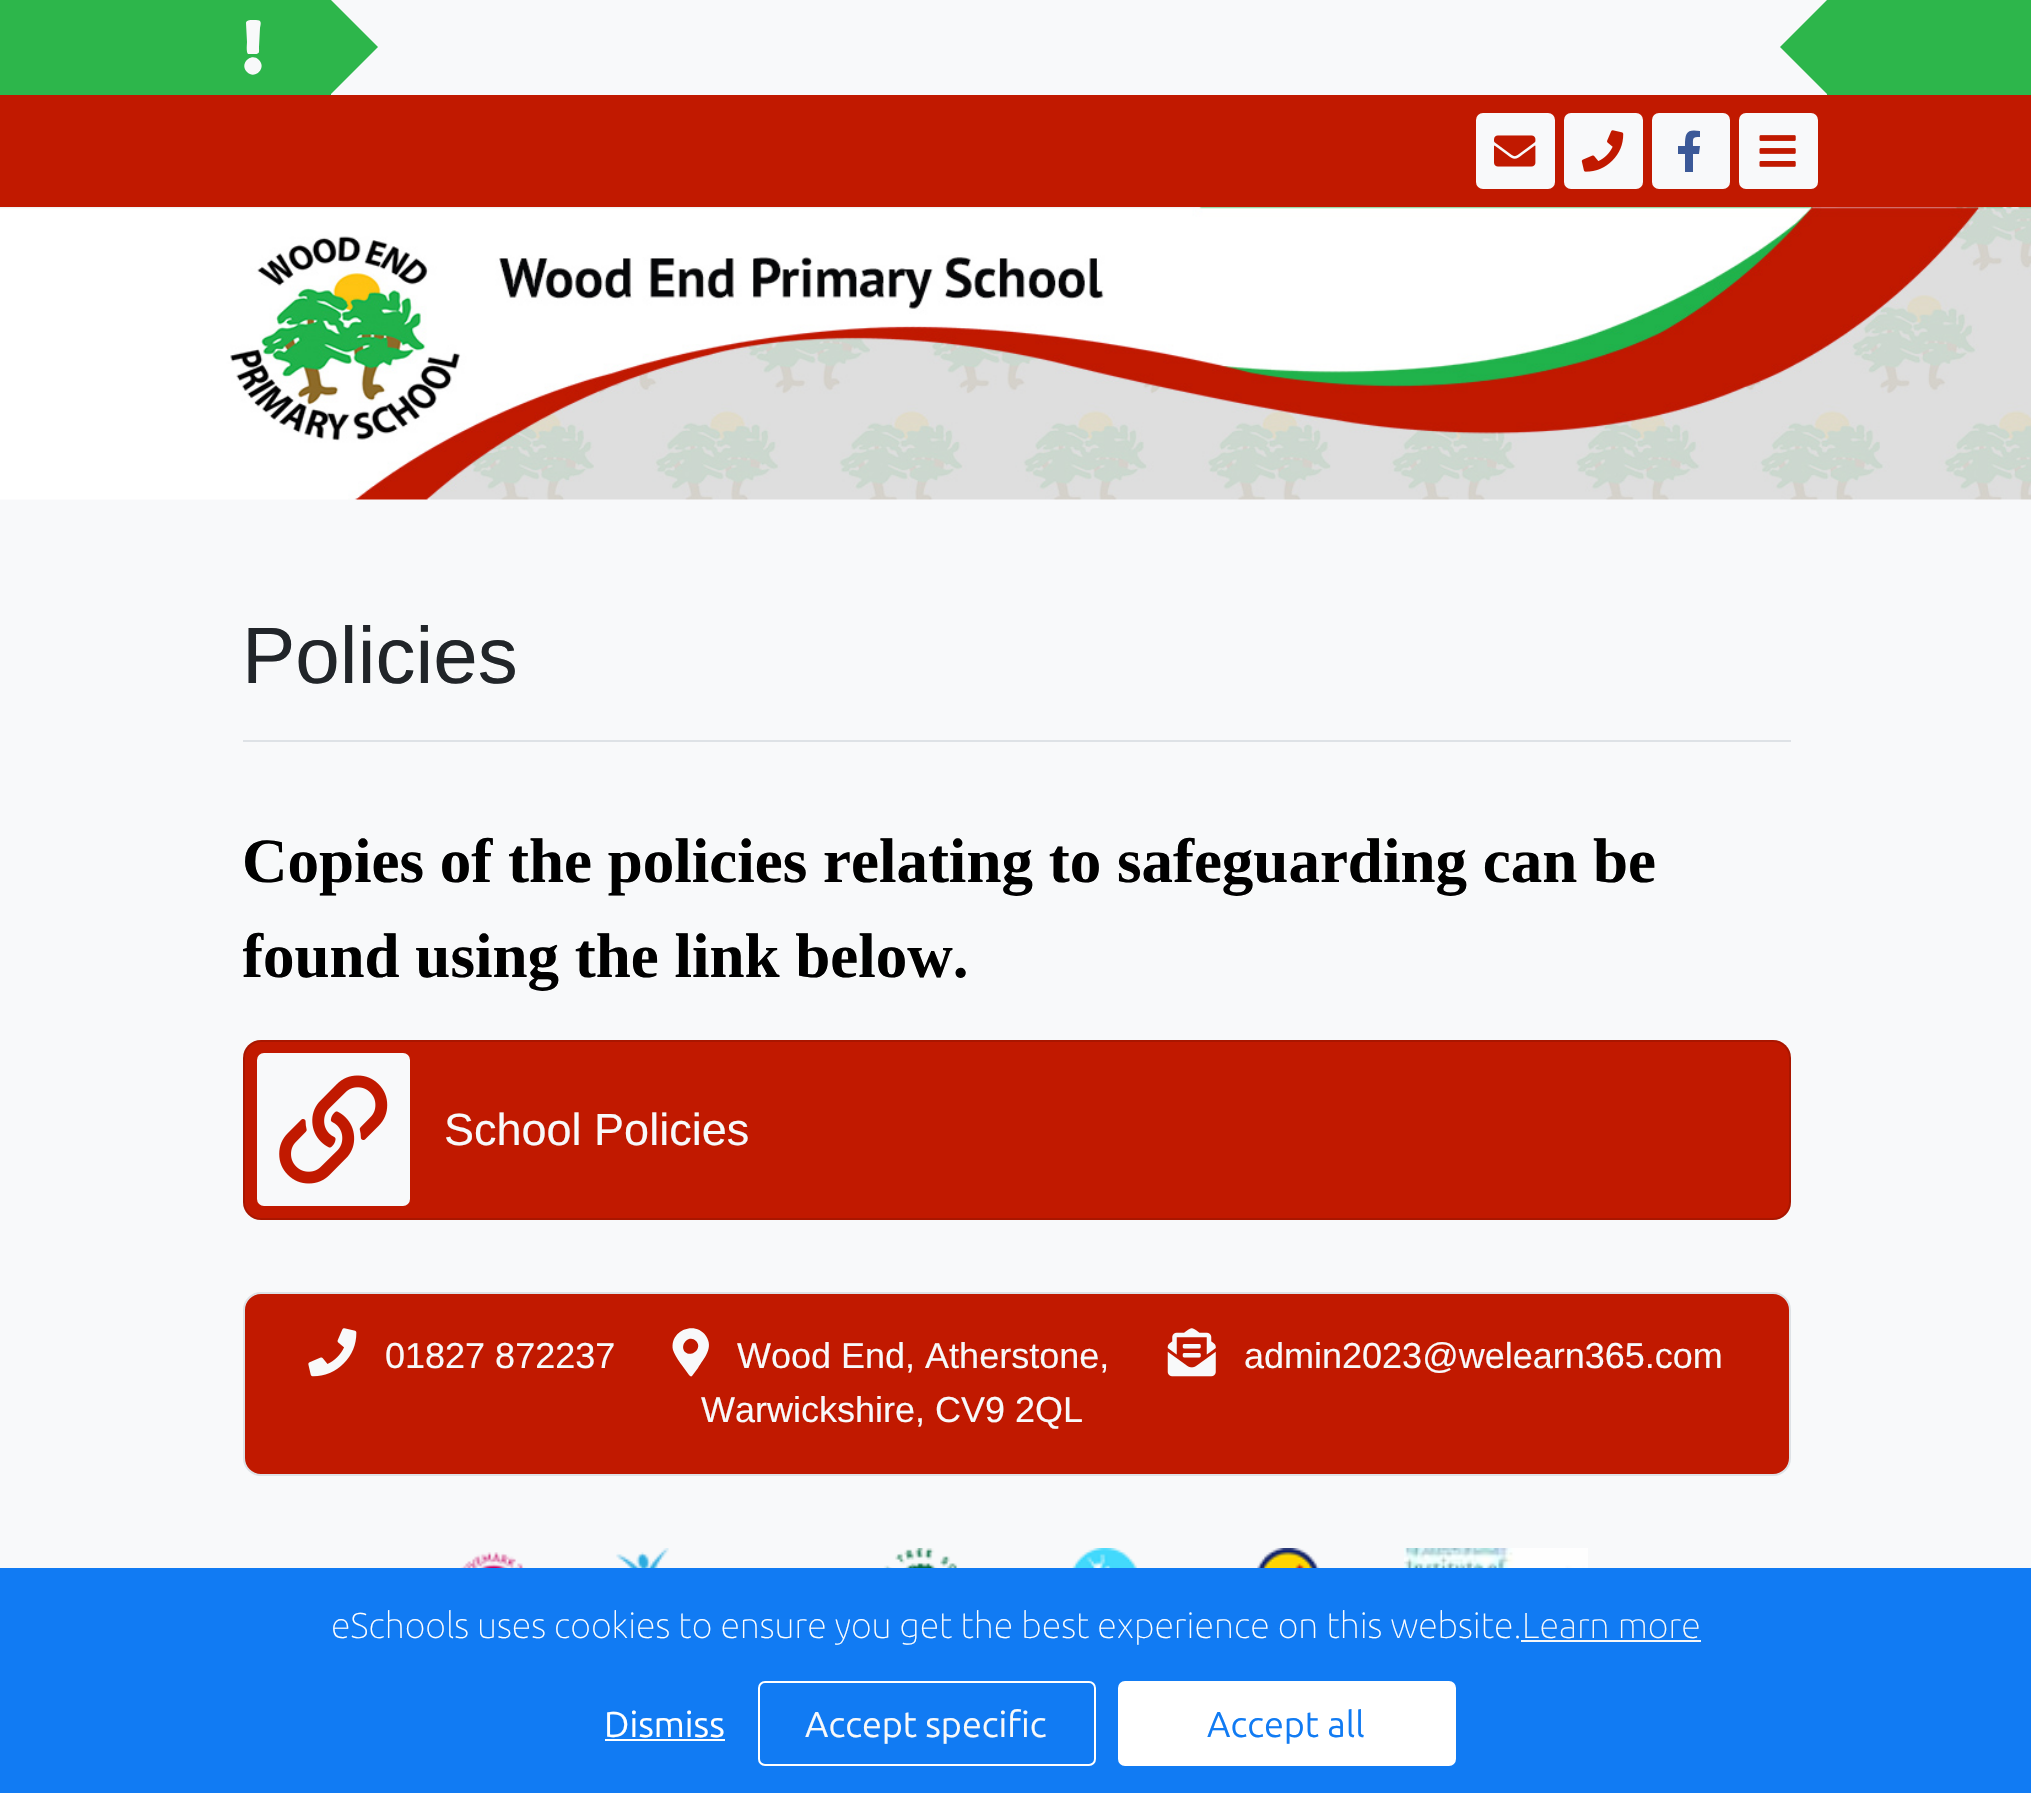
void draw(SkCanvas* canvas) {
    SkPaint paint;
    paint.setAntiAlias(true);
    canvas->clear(0xFFF8F9FA);
    paint.setColor(0xFF2DB64B);
    canvas->drawRect(SkRect::MakeXYWH(0, 0, 2031, 95), paint);
    paint.setColor(0xFFF8F9FA);
    canvas->drawRect(SkRect::MakeXYWH(331, 0, 1496, 95), paint);
    canvas->drawPath(SkPathBuilder().moveTo(259, 60).cubicTo(267, 68, 255, 80, 247, 72).cubicTo(239, 64, 251, 52, 259, 60).close().moveTo(246, 23).cubicTo(246, 19, 254, 20, 256, 20).cubicTo(262, 20, 261, 23, 260, 28).lineTo(259, 47).cubicTo(259, 52, 260, 54, 255, 54).lineTo(248, 54).cubicTo(246, 52, 247, 44, 247, 42).close().detach(), paint);
    paint.setColor(0xFF2DB64B);
    canvas->drawPath(SkPathBuilder().moveTo(331, 94).lineTo(331, 0).lineTo(378, 47).close().detach(), paint);
    canvas->drawPath(SkPathBuilder().moveTo(1827, 0).lineTo(1827, 94).lineTo(1780, 47).close().detach(), paint);
    paint.setColor(0xFFC11900);
    canvas->drawRect(SkRect::MakeXYWH(0, 95, 2031, 112), paint);
    paint.setColor(0xFFF8F9FA);
    canvas->drawRoundRect(SkRect::MakeXYWH(1476, 113, 79, 76), 7, 7, paint);
    canvas->drawImageRect(SkImages::DeferredFromEncodedData(SkData::MakeFromFileName("img1.png")), SkRect::MakeXYWH(1494, 135, 42, 32), SkSamplingOptions());
    canvas->drawRoundRect(SkRect::MakeXYWH(1564, 113, 79, 76), 7, 7, paint);
    canvas->drawImageRect(SkImages::DeferredFromEncodedData(SkData::MakeFromFileName("img2.png")), SkRect::MakeXYWH(1581, 130, 43, 42), SkSamplingOptions());
    canvas->drawRoundRect(SkRect::MakeXYWH(1652, 113, 78, 76), 7, 7, paint);
    paint.setColor(0xFF3B5998);
    canvas->drawPath(SkPathBuilder().moveTo(1699, 154).lineTo(1693, 154).lineTo(1693, 172).lineTo(1685, 172).lineTo(1685, 154).lineTo(1678, 154).lineTo(1678, 146).lineTo(1685, 146).cubicTo(1685, 132, 1687, 129, 1700, 131).lineTo(1700, 137).cubicTo(1692, 137, 1693, 138, 1693, 146).lineTo(1700, 146).close().detach(), paint);
    paint.setColor(0xFFF8F9FA);
    canvas->drawRoundRect(SkRect::MakeXYWH(1739, 113, 79, 76), 7, 7, paint);
    canvas->drawImageRect(SkImages::DeferredFromEncodedData(SkData::MakeFromFileName("img3.png")), SkRect::MakeXYWH(1759, 135, 37, 32), SkSamplingOptions());
    canvas->drawImageRect(SkImages::DeferredFromEncodedData(SkData::MakeFromFileName("img4.png")), SkRect::MakeXYWH(0, 207, 2031, 293), SkSamplingOptions());
    paint.setColor(0xFFDEE2E6);
    canvas->drawRect(SkRect::MakeXYWH(243, 740, 1548, 2), paint);
    SkFont font1(fontMgr->matchFamilyStyle("Liberation Sans", SkFontStyle::Normal()), 80);
    font1.setSubpixel(true);
    paint.setColor(0xFF212529);
    canvas->drawString("Policies", 242, 683, font1, paint);
    SkFont font2(fontMgr->matchFamilyStyle("Liberation Serif", SkFontStyle::Bold()), 63);
    font2.setSubpixel(true);
    paint.setColor(0xFF000000);
    canvas->drawString("Copies of the policies relating to safeguarding can be", 242, 882, font2, paint);
    canvas->save();
    canvas->clipRect(SkRect::MakeXYWH(243, 815, 1548, 189));
    canvas->drawString("found using the link below.", 242, 977, font2, paint);
    canvas->restore();
    paint.setColor(0xFFC11900);
    canvas->drawRoundRect(SkRect::MakeXYWH(243, 1040, 1548, 180), 18, 18, paint);
    paint.setStyle(SkPaint::kStroke_Style);
    paint.setStrokeWidth(2);
    paint.setColor(0x1F000000);
    canvas->drawRoundRect(SkRect::MakeXYWH(244, 1041, 1546, 178), 17, 17, paint);
    paint.setStyle(SkPaint::kFill_Style);
    paint.setColor(0xFFF8F9FA);
    canvas->drawRoundRect(SkRect::MakeXYWH(257, 1053, 153, 153), 7, 7, paint);
    canvas->drawImageRect(SkImages::DeferredFromEncodedData(SkData::MakeFromFileName("img5.png")), SkRect::MakeXYWH(279, 1075, 109, 109), SkSamplingOptions());
    SkFont font3(fontMgr->matchFamilyStyle("Liberation Sans", SkFontStyle::Normal()), 45);
    font3.setSubpixel(true);
    canvas->drawString("School Policies", 444, 1145, font3, paint);
    paint.setColor(0xFFC11900);
    canvas->drawRoundRect(SkRect::MakeXYWH(244, 1293, 1546, 182), 17, 17, paint);
    paint.setStyle(SkPaint::kStroke_Style);
    paint.setColor(0xFFDEE2E6);
    canvas->drawRoundRect(SkRect::MakeXYWH(244, 1293, 1546, 182), 17, 17, paint);
    canvas->drawImageRect(SkImages::DeferredFromEncodedData(SkData::MakeFromFileName("img6.png")), SkRect::MakeXYWH(308, 1328, 49, 49), SkSamplingOptions());
    SkFont font4(fontMgr->matchFamilyStyle("Liberation Sans", SkFontStyle::Normal()), 36);
    font4.setSubpixel(true);
    paint.setStyle(SkPaint::kFill_Style);
    paint.setColor(0xFFF8F9FA);
    canvas->drawString("01827 872237", 385, 1368, font4, paint);
    canvas->drawPath(SkPathBuilder().moveTo(689, 1375).cubicTo(685, 1369, 675, 1357, 673, 1350).cubicTo(669, 1331, 695, 1320, 706, 1336).cubicTo(714, 1348, 704, 1358, 698, 1368).lineTo(692, 1376).cubicTo(691, 1377, 690, 1376, 689, 1375).close().moveTo(685, 1352).cubicTo(692, 1358, 703, 1348, 696, 1341).cubicTo(689, 1334, 679, 1345, 685, 1352).close().detach(), paint);
    canvas->drawString("Wood End, Atherstone,", 737, 1368, font4, paint);
    canvas->drawString("Warwickshire, CV9 2QL", 701, 1422, font4, paint);
    canvas->drawImageRect(SkImages::DeferredFromEncodedData(SkData::MakeFromFileName("img7.png")), SkRect::MakeXYWH(1167, 1328, 49, 49), SkSamplingOptions());
    canvas->drawString("admin2023@welearn365.com", 1244, 1368, font4, paint);
    canvas->drawImageRect(SkImages::DeferredFromEncodedData(SkData::MakeFromFileName("img8.png")), SkRect::MakeXYWH(460, 1552, 66, 16), SkSamplingOptions());
    canvas->drawImageRect(SkImages::DeferredFromEncodedData(SkData::MakeFromFileName("img9.png")), SkRect::MakeXYWH(616, 1548, 53, 20), SkSamplingOptions());
    canvas->drawImageRect(SkImages::DeferredFromEncodedData(SkData::MakeFromFileName("img10.png")), SkRect::MakeXYWH(883, 1548, 76, 20), SkSamplingOptions());
    canvas->drawImageRect(SkImages::DeferredFromEncodedData(SkData::MakeFromFileName("img11.png")), SkRect::MakeXYWH(1072, 1548, 66, 20), SkSamplingOptions());
    canvas->drawImageRect(SkImages::DeferredFromEncodedData(SkData::MakeFromFileName("img12.png")), SkRect::MakeXYWH(1257, 1548, 63, 20), SkSamplingOptions());
    canvas->drawImageRect(SkImages::DeferredFromEncodedData(SkData::MakeFromFileName("img13.png")), SkRect::MakeXYWH(1404, 1548, 184, 20), SkSamplingOptions());
    paint.setColor(0xFF117BF3);
    canvas->drawRect(SkRect::MakeXYWH(0, 1568, 2031, 225), paint);
    SkFont font5(fontMgr->matchFamilyStyle("Ubuntu", SkFontStyle(100, SkFontStyle::kNormal_Width, SkFontStyle::kUpright_Slant)), 36);
    font5.setSubpixel(true);
    paint.setColor(0xFFFFFFFF);
    canvas->drawString("eSchools uses cookies to ensure you get the best experience on this website.", 331, 1638, font5, paint);
    paint.setColor(0xFFF7F7F7);
    canvas->drawRect(SkRect::MakeXYWH(1521, 1640, 180, 2), paint);
    paint.setColor(0xFFF8F9FA);
    canvas->drawString("Learn more", 1522, 1638, font5, paint);
    SkFont font6(fontMgr->matchFamilyStyle("Ubuntu", SkFontStyle::Normal()), 36);
    font6.setSubpixel(true);
    paint.setColor(0xFFFFFFFF);
    canvas->drawString("Dismiss", 604, 1737, font6, paint);
    canvas->drawRect(SkRect::MakeXYWH(605, 1739, 120, 2), paint);
    paint.setStyle(SkPaint::kStroke_Style);
    canvas->drawRoundRect(SkRect::MakeXYWH(759, 1682, 336, 83), 6, 6, paint);
    paint.setStyle(SkPaint::kFill_Style);
    paint.setColor(0xFFF8F9FA);
    canvas->drawString("Accept specific", 805, 1737, font6, paint);
    paint.setColor(0xFFFFFFFF);
    canvas->drawRoundRect(SkRect::MakeXYWH(1119, 1682, 336, 83), 6, 6, paint);
    paint.setStyle(SkPaint::kStroke_Style);
    canvas->drawRoundRect(SkRect::MakeXYWH(1119, 1682, 336, 83), 6, 6, paint);
    paint.setStyle(SkPaint::kFill_Style);
    paint.setColor(0xFF117BF3);
    canvas->drawString("Accept all", 1207, 1737, font6, paint);
}
